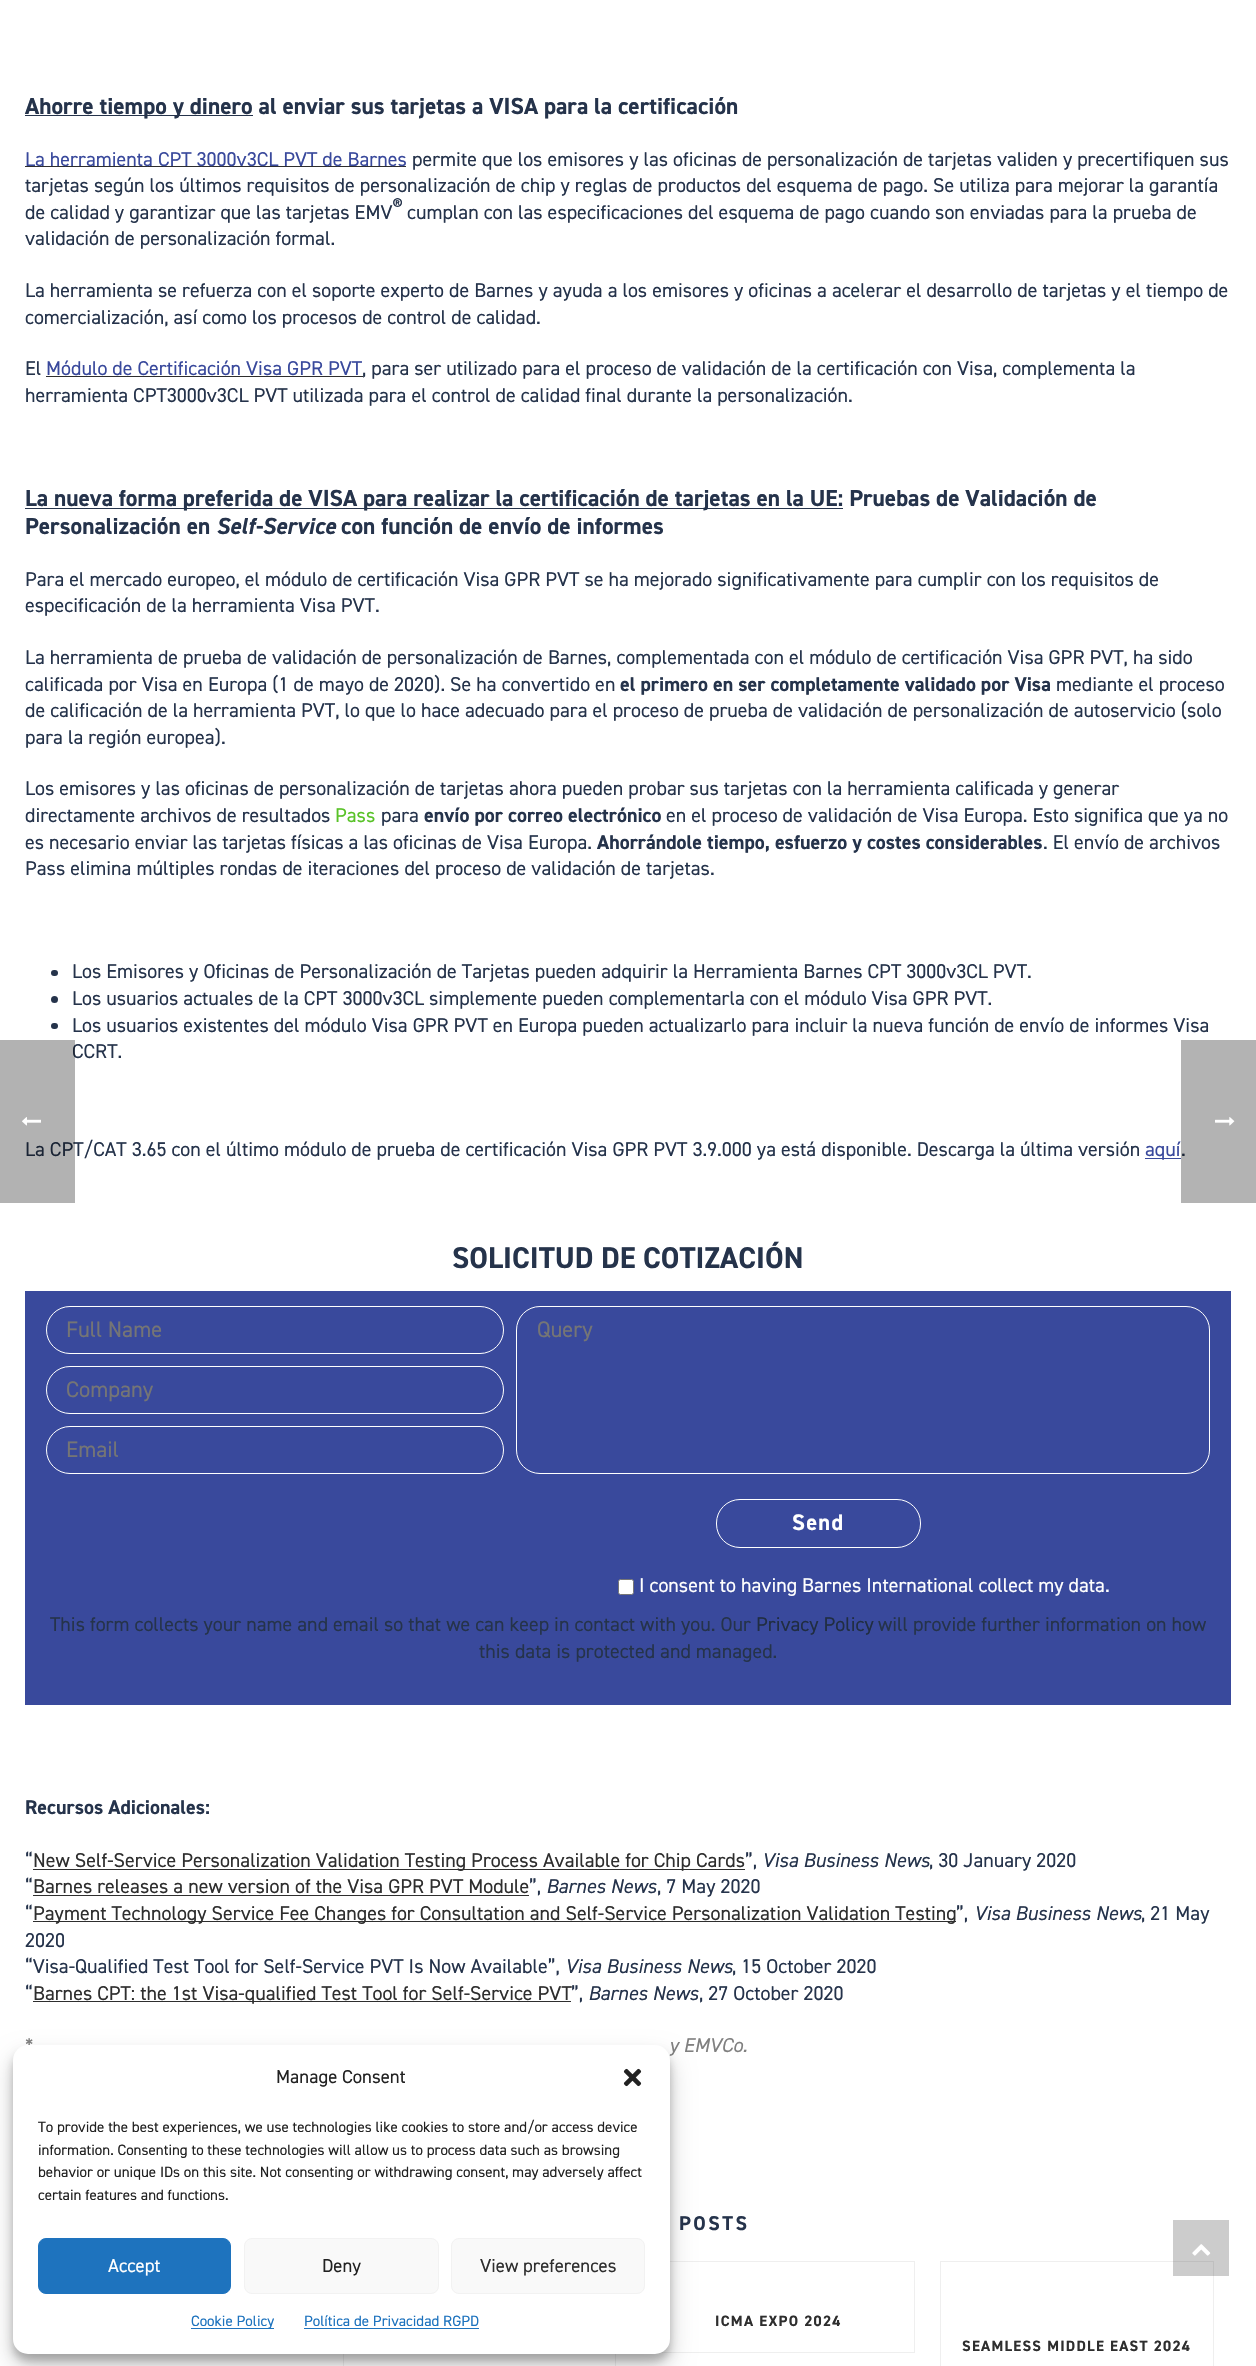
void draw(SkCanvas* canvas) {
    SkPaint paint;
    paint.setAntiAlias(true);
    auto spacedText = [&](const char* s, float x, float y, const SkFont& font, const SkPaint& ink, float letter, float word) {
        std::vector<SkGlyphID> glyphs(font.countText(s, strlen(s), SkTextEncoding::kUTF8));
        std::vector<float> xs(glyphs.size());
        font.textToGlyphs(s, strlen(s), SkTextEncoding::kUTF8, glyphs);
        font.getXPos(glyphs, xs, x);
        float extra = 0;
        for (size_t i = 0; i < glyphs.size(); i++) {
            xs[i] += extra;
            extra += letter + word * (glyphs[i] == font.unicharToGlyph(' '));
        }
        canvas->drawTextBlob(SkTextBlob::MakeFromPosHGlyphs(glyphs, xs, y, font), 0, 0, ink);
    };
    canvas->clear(0xFFFFFFFF);
    paint.setColor(0xFFB3B3B3);
    canvas->drawRect(SkRect::MakeXYWH(1181, 1040, 75, 163), paint);
    paint.setColor(0xFF25334B);
    canvas->drawRect(SkRect::MakeXYWH(25, 115, 228, 1), paint);
    SkFont font1(fontMgr->matchFamilyStyle("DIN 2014", SkFontStyle::Bold()), 23.35f);
    font1.setSubpixel(true);
    canvas->drawString("Ahorre tiempo y dinero al enviar sus tarjetas a VISA para la certificación", 25, 114, font1, paint);
    paint.setColor(0xFF2E2E2E);
    canvas->drawRect(SkRect::MakeXYWH(25, 166, 381, 1), paint);
    SkFont font2(fontMgr->matchFamilyStyle("DIN 2014", SkFontStyle::Normal()), 20);
    font2.setSubpixel(true);
    paint.setColor(0xFF39499C);
    canvas->drawString("La herramienta CPT 3000v3CL PVT de Barnes", 25, 166, font2, paint);
    paint.setColor(0xFF25334B);
    canvas->drawString("permite que los emisores y las oficinas de personalización de tarjetas validen y precertifiquen sus", 412, 166, font2, paint);
    canvas->drawString("tarjetas según los últimos requisitos de personalización de chip y reglas de productos del esquema de pago. Se utiliza para mejorar la garantía", 25, 192, font2, paint);
    SkFont font3(fontMgr->matchFamilyStyle("DIN 2014", SkFontStyle::Bold()), 17);
    font3.setSubpixel(true);
    canvas->drawString("®", 393, 211, font3, paint);
    canvas->drawString("de calidad y garantizar que las tarjetas EMV", 25, 219, font2, paint);
    canvas->drawString("cumplan con las especificaciones del esquema de pago cuando son enviadas para la prueba de", 407, 219, font2, paint);
    canvas->drawString("validación de personalización formal.", 25, 245, font2, paint);
    canvas->drawString("La herramienta se refuerza con el soporte experto de Barnes y ayuda a los emisores y oficinas a acelerar el desarrollo de tarjetas y el tiempo de", 25, 297, font2, paint);
    canvas->drawString("comercialización, así como los procesos de control de calidad.", 25, 324, font2, paint);
    canvas->drawString("El", 25, 375, font2, paint);
    paint.setColor(0xFF39499C);
    canvas->drawString("Módulo de Certificación Visa GPR PVT", 46, 375, font2, paint);
    paint.setColor(0xFF2E2E2E);
    canvas->drawRect(SkRect::MakeXYWH(46, 376, 317, 1), paint);
    paint.setColor(0xFF25334B);
    canvas->drawString(", para ser utilizado para el proceso de validación de la certificación con Visa, complementa la", 362, 375, font2, paint);
    canvas->drawString("herramienta CPT3000v3CL PVT utilizada para el control de calidad final durante la personalización.", 25, 402, font2, paint);
    canvas->drawRect(SkRect::MakeXYWH(25, 508, 818, 1), paint);
    canvas->drawString("La nueva forma preferida de VISA para realizar la certificación de tarjetas en la UE: Pruebas de Validación de", 25, 506, font1, paint);
    canvas->drawString("Personalización en", 25, 534, font1, paint);
    SkFont font4(fontMgr->matchFamilyStyle("DIN 2014", SkFontStyle::BoldItalic()), 23.35f);
    font4.setSubpixel(true);
    canvas->drawString("Self-Service", 216, 534, font4, paint);
    canvas->drawString("con función de envío de informes", 341, 534, font1, paint);
    canvas->drawString("Para el mercado europeo, el módulo de certificación Visa GPR PVT se ha mejorado significativamente para cumplir con los requisitos de", 25, 586, font2, paint);
    canvas->drawString("especificación de la herramienta Visa PVT.", 25, 612, font2, paint);
    canvas->drawString("La herramienta de prueba de validación de personalización de Barnes, complementada con el módulo de certificación Visa GPR PVT, ha sido", 25, 664, font2, paint);
    canvas->drawString("calificada por Visa en Europa (1 de mayo de 2020). Se ha convertido en", 25, 691, font2, paint);
    SkFont font5(fontMgr->matchFamilyStyle("DIN 2014", SkFontStyle::Bold()), 20);
    font5.setSubpixel(true);
    canvas->drawString("el primero en ser completamente validado por Visa", 620, 691, font5, paint);
    canvas->drawString("mediante el proceso", 1056, 691, font2, paint);
    canvas->drawString("de calificación de la herramienta PVT, lo que lo hace adecuado para el proceso de prueba de validación de personalización de autoservicio (solo", 25, 717, font2, paint);
    canvas->drawString("para la región europea).", 25, 744, font2, paint);
    canvas->drawString("Los emisores y las oficinas de personalización de tarjetas ahora pueden probar sus tarjetas con la herramienta calificada y generar", 25, 795, font2, paint);
    canvas->drawString("directamente archivos de resultados", 25, 822, font2, paint);
    paint.setColor(0xFF58C227);
    canvas->drawString("Pass", 335, 822, font2, paint);
    paint.setColor(0xFF25334B);
    canvas->drawString("para", 381, 822, font2, paint);
    canvas->drawString("envío por correo electrónico", 424, 822, font5, paint);
    canvas->drawString("en el proceso de validación de Visa Europa. Esto significa que ya no", 666, 822, font2, paint);
    canvas->drawString("es necesario enviar las tarjetas físicas a las oficinas de Visa Europa.", 25, 849, font2, paint);
    canvas->drawString("Ahorrándole tiempo, esfuerzo y costes considerables", 597, 849, font5, paint);
    canvas->drawString(". El envío de archivos", 1043, 849, font2, paint);
    canvas->drawString("Pass elimina múltiples rondas de iteraciones del proceso de validación de tarjetas.", 25, 875, font2, paint);
    canvas->drawRoundRect(SkRect::MakeXYWH(51, 970, 7, 6), 3, 3, paint);
    canvas->drawString("Los Emisores y Oficinas de Personalización de Tarjetas pueden adquirir la Herramienta Barnes CPT 3000v3CL PVT.", 72, 978, font2, paint);
    canvas->drawCircle(54.5f, 999.5f, 3.5f, paint);
    canvas->drawString("Los usuarios actuales de la CPT 3000v3CL simplemente pueden complementarla con el módulo Visa GPR PVT.", 72, 1005, font2, paint);
    canvas->drawRoundRect(SkRect::MakeXYWH(51, 1023, 7, 6), 3, 3, paint);
    canvas->drawString("Los usuarios existentes del módulo Visa GPR PVT en Europa pueden actualizarlo para incluir la nueva función de envío de informes Visa", 72, 1032, font2, paint);
    canvas->drawString("CCRT.", 72, 1058, font2, paint);
    canvas->drawString("La CPT/CAT 3.65 con el último módulo de prueba de certificación Visa GPR PVT 3.9.000 ya está disponible. Descarga la última versión", 25, 1156, font2, paint);
    paint.setColor(0xFF39499C);
    canvas->drawRect(SkRect::MakeXYWH(1145, 1158, 36, 1), paint);
    canvas->drawString("aquí", 1145, 1156, font2, paint);
    paint.setColor(0xFF1A2435);
    canvas->drawString(".", 1181, 1156, font2, paint);
    SkFont font6(fontMgr->matchFamilyStyle("DIN 2014", SkFontStyle::Bold()), 30);
    font6.setSubpixel(true);
    paint.setColor(0xFF25334B);
    canvas->drawString("SOLICITUD DE COTIZACIÓN", 452, 1268, font6, paint);
    paint.setColor(0xFF39499C);
    canvas->drawRect(SkRect::MakeXYWH(25, 1291, 1206, 414), paint);
    paint.setStyle(SkPaint::kStroke_Style);
    paint.setStrokeWidth(1);
    paint.setColor(0xFFFFFFFF);
    canvas->drawRoundRect(SkRect::MakeXYWH(46.5f, 1306.5f, 457, 47), 23.5f, 23.5f, paint);
    SkFont font7(fontMgr->matchFamilyStyle("DIN 2014", SkFontStyle::Normal()), 22.5f);
    font7.setSubpixel(true);
    paint.setStyle(SkPaint::kFill_Style);
    paint.setColor(0xFF757575);
    canvas->drawString("Full Name", 66, 1337, font7, paint);
    paint.setStyle(SkPaint::kStroke_Style);
    paint.setColor(0xFFFFFFFF);
    canvas->drawRoundRect(SkRect::MakeXYWH(46.5f, 1366.5f, 457, 47), 23.5f, 23.5f, paint);
    paint.setStyle(SkPaint::kFill_Style);
    paint.setColor(0xFF757575);
    canvas->drawString("Company", 66, 1397, font7, paint);
    paint.setStyle(SkPaint::kStroke_Style);
    paint.setColor(0xFFFFFFFF);
    canvas->drawRoundRect(SkRect::MakeXYWH(46.5f, 1426.5f, 457, 47), 23.5f, 23.5f, paint);
    paint.setStyle(SkPaint::kFill_Style);
    paint.setColor(0xFF757575);
    canvas->drawString("Email", 66, 1457, font7, paint);
    paint.setStyle(SkPaint::kStroke_Style);
    paint.setColor(0xFFFFFFFF);
    canvas->drawRoundRect(SkRect::MakeXYWH(516.5f, 1306.5f, 693, 167), 23.5f, 23.5f, paint);
    paint.setStyle(SkPaint::kFill_Style);
    paint.setColor(0xFF757575);
    canvas->drawString("Query", 537, 1337, font7, paint);
    paint.setStyle(SkPaint::kStroke_Style);
    paint.setColor(0xFFFFFFFF);
    canvas->drawRoundRect(SkRect::MakeXYWH(716.5f, 1499.5f, 204, 48), 23.5f, 23.5f, paint);
    SkFont font8(fontMgr->matchFamilyStyle("DIN 2014", SkFontStyle::Bold()), 22.5f);
    font8.setSubpixel(true);
    paint.setStyle(SkPaint::kFill_Style);
    spacedText("Send", 792, 1530, font8, paint, 1.25f, 0);
    canvas->drawRoundRect(SkRect::MakeXYWH(618.5f, 1579.5f, 15, 15), 2, 2, paint);
    paint.setStyle(SkPaint::kStroke_Style);
    paint.setColor(0xFF767676);
    canvas->drawRoundRect(SkRect::MakeXYWH(618.5f, 1579.5f, 15, 15), 2, 2, paint);
    paint.setStyle(SkPaint::kFill_Style);
    paint.setColor(0xFFFFFFFF);
    canvas->drawString("I consent to having Barnes International collect my data.", 639, 1592, font2, paint);
    paint.setColor(0xFF25334B);
    canvas->drawString("This form collects your name and email so that we can keep in contact with you. Our", 50, 1631, font2, paint);
    paint.setColor(0xFF202D42);
    canvas->drawString("Privacy Policy", 756, 1631, font2, paint);
    paint.setColor(0xFF25334B);
    canvas->drawString("will provide further information on how", 878, 1631, font2, paint);
    canvas->drawString("this data is protected and managed.", 479, 1658, font2, paint);
    canvas->drawString("Recursos Adicionales:", 25, 1814, font5, paint);
    canvas->drawString("“", 25, 1867, font2, paint);
    paint.setColor(0xFF2E2E2E);
    canvas->drawRect(SkRect::MakeXYWH(33, 1869, 712, 1), paint);
    canvas->drawString("New Self-Service Personalization Validation Testing Process Available for Chip Cards", 33, 1867, font2, paint);
    paint.setColor(0xFF25334B);
    canvas->drawString("”,", 745, 1867, font2, paint);
    SkFont font9(fontMgr->matchFamilyStyle("DIN 2014", SkFontStyle::Italic()), 20);
    font9.setSubpixel(true);
    canvas->drawString("Visa Business News", 762, 1867, font9, paint);
    canvas->drawString(", 30 January 2020", 929, 1867, font2, paint);
    canvas->drawString("“", 25, 1893, font2, paint);
    paint.setColor(0xFF2E2E2E);
    canvas->drawString("Barnes releases a new version of the Visa GPR PVT Module", 33, 1893, font2, paint);
    canvas->drawRect(SkRect::MakeXYWH(33, 1895, 496, 1), paint);
    paint.setColor(0xFF25334B);
    canvas->drawString("”,", 529, 1893, font2, paint);
    canvas->drawString("Barnes News", 546, 1893, font9, paint);
    canvas->drawString(", 7 May 2020", 657, 1893, font2, paint);
    canvas->drawString("“", 25, 1920, font2, paint);
    paint.setColor(0xFF2E2E2E);
    canvas->drawRect(SkRect::MakeXYWH(33, 1921, 923, 1), paint);
    canvas->drawString("Payment Technology Service Fee Changes for Consultation and Self-Service Personalization Validation Testing", 33, 1920, font2, paint);
    paint.setColor(0xFF25334B);
    canvas->drawString("”,", 956, 1920, font2, paint);
    canvas->drawString("Visa Business News", 974, 1920, font9, paint);
    canvas->drawString(", 21 May", 1141, 1920, font2, paint);
    canvas->drawString("2020", 25, 1947, font2, paint);
    canvas->drawString("“Visa-Qualified Test Tool for Self-Service PVT Is Now Available”,", 25, 1973, font2, paint);
    canvas->drawString("Visa Business News", 565, 1973, font9, paint);
    canvas->drawString(", 15 October 2020", 732, 1973, font2, paint);
    canvas->drawString("“", 25, 2000, font2, paint);
    paint.setColor(0xFF2E2E2E);
    canvas->drawRect(SkRect::MakeXYWH(33, 2001, 538, 1), paint);
    canvas->drawString("Barnes CPT: the 1st Visa-qualified Test Tool for Self-Service PVT", 33, 2000, font2, paint);
    paint.setColor(0xFF25334B);
    canvas->drawString("”,", 571, 2000, font2, paint);
    canvas->drawString("Barnes News", 588, 2000, font9, paint);
    canvas->drawString(", 27 October 2020", 699, 2000, font2, paint);
    paint.setColor(0xFF808080);
    canvas->drawString("*", 25, 2052, font2, paint);
    canvas->drawString("y EMVCo.", 669, 2052, font9, paint);
    paint.setColor(0xFF25334B);
    spacedText("POSTS", 679, 2230, font5, paint, 2.5f, 0);
    paint.setStyle(SkPaint::kStroke_Style);
    paint.setColor(0xFFEFEFEF);
    canvas->drawRect(SkRect::MakeXYWH(343.5f, 2261.5f, 272, 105), paint);
    canvas->drawRect(SkRect::MakeXYWH(641.5f, 2261.5f, 273, 91), paint);
    SkFont font10(fontMgr->matchFamilyStyle("DIN 2014", SkFontStyle::Bold()), 15);
    font10.setSubpixel(true);
    paint.setStyle(SkPaint::kFill_Style);
    paint.setColor(0xFF2E2E2E);
    spacedText("ICMA EXPO 2024", 715, 2326, font10, paint, 1.25f, 0);
    paint.setStyle(SkPaint::kStroke_Style);
    paint.setColor(0xFFEFEFEF);
    canvas->drawRect(SkRect::MakeXYWH(940.5f, 2261.5f, 273, 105), paint);
    paint.setStyle(SkPaint::kFill_Style);
    paint.setColor(0xFF2E2E2E);
    spacedText("SEAMLESS MIDDLE EAST 2024", 962, 2351, font10, paint, 1.25f, 0);
    paint.setColor(0x4D000000);
    canvas->drawRect(SkRect::MakeXYWH(0, 1040, 75, 163), paint);
    canvas->drawImageRect(SkImages::DeferredFromEncodedData(SkData::MakeFromFileName("img1.png")), SkRect::MakeXYWH(22, 1117, 19, 9), SkSamplingOptions());
    canvas->drawImageRect(SkImages::DeferredFromEncodedData(SkData::MakeFromFileName("img2.png")), SkRect::MakeXYWH(1215, 1117, 20, 9), SkSamplingOptions());
    paint.setColor(0x3B000000);
    paint.setMaskFilter(SkMaskFilter::MakeBlur(kNormal_SkBlurStyle, 4));
    canvas->drawRoundRect(SkRect::MakeXYWH(13, 2053, 657, 308), 15, 15, paint);
    paint.setMaskFilter(nullptr);
    paint.setColor(0x30000000);
    paint.setMaskFilter(SkMaskFilter::MakeBlur(kNormal_SkBlurStyle, 12.5f));
    canvas->drawRoundRect(SkRect::MakeXYWH(13, 2058, 657, 308), 15, 15, paint);
    paint.setMaskFilter(nullptr);
    paint.setColor(0xFFFFFFFF);
    canvas->drawRoundRect(SkRect::MakeXYWH(13, 2045, 657, 309), 15, 15, paint);
    SkFont font11(fontMgr->matchFamilyStyle("DIN 2014", SkFontStyle::Normal()), 18.75f);
    font11.setSubpixel(true);
    paint.setColor(0xFF222222);
    canvas->drawString("Manage Consent", 276, 2083, font11, paint);
    canvas->drawImageRect(SkImages::DeferredFromEncodedData(SkData::MakeFromFileName("img3.png")), SkRect::MakeXYWH(623, 2068, 19, 19), SkSamplingOptions());
    SkFont font12(fontMgr->matchFamilyStyle("DIN 2014", SkFontStyle::Normal()), 15);
    font12.setSubpixel(true);
    canvas->drawString("To provide the best experiences, we use technologies like cookies to store and/or access device", 38, 2132, font12, paint);
    canvas->drawString("information. Consenting to these technologies will allow us to process data such as browsing", 38, 2155, font12, paint);
    canvas->drawString("behavior or unique IDs on this site. Not consenting or withdrawing consent, may adversely affect", 38, 2177, font12, paint);
    canvas->drawString("certain features and functions.", 38, 2200, font12, paint);
    paint.setColor(0xFF1E73BE);
    canvas->drawRoundRect(SkRect::MakeXYWH(38.5f, 2238.5f, 192, 55), 7.5f, 7.5f, paint);
    paint.setStyle(SkPaint::kStroke_Style);
    canvas->drawRoundRect(SkRect::MakeXYWH(38.5f, 2238.5f, 192, 55), 7.5f, 7.5f, paint);
    paint.setStyle(SkPaint::kFill_Style);
    paint.setColor(0xFFFFFFFF);
    canvas->drawString("Accept", 108, 2272, font11, paint);
    paint.setColor(0xFFF9F9F9);
    canvas->drawRoundRect(SkRect::MakeXYWH(244.5f, 2238.5f, 194, 55), 7.5f, 7.5f, paint);
    paint.setStyle(SkPaint::kStroke_Style);
    paint.setColor(0xFFF2F2F2);
    canvas->drawRoundRect(SkRect::MakeXYWH(244.5f, 2238.5f, 194, 55), 7.5f, 7.5f, paint);
    paint.setStyle(SkPaint::kFill_Style);
    paint.setColor(0xFF222222);
    canvas->drawString("Deny", 322, 2272, font11, paint);
    paint.setColor(0xFFF9F9F9);
    canvas->drawRoundRect(SkRect::MakeXYWH(451.5f, 2238.5f, 193, 55), 7.5f, 7.5f, paint);
    paint.setStyle(SkPaint::kStroke_Style);
    paint.setColor(0xFFF2F2F2);
    canvas->drawRoundRect(SkRect::MakeXYWH(451.5f, 2238.5f, 193, 55), 7.5f, 7.5f, paint);
    paint.setStyle(SkPaint::kFill_Style);
    paint.setColor(0xFF2E2E2E);
    canvas->drawString("View preferences", 480, 2272, font11, paint);
    paint.setColor(0xFF1E73BE);
    canvas->drawRect(SkRect::MakeXYWH(191, 2328, 83, 1), paint);
    canvas->drawString("Cookie Policy", 191, 2326, font12, paint);
    canvas->drawString("Política de Privacidad RGPD", 304, 2326, font12, paint);
    canvas->drawRect(SkRect::MakeXYWH(304, 2328, 175, 1), paint);
    paint.setColor(0x33000000);
    canvas->drawRect(SkRect::MakeXYWH(1173, 2220, 56, 56), paint);
    canvas->drawImageRect(SkImages::DeferredFromEncodedData(SkData::MakeFromFileName("img4.png")), SkRect::MakeXYWH(1192, 2244, 19, 12), SkSamplingOptions());
}
